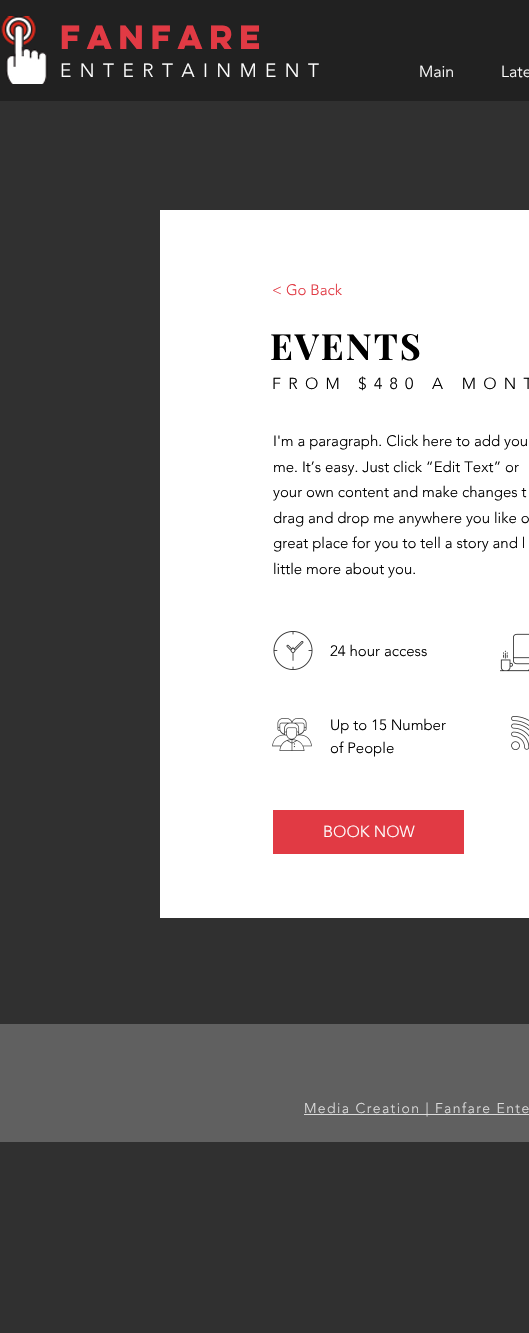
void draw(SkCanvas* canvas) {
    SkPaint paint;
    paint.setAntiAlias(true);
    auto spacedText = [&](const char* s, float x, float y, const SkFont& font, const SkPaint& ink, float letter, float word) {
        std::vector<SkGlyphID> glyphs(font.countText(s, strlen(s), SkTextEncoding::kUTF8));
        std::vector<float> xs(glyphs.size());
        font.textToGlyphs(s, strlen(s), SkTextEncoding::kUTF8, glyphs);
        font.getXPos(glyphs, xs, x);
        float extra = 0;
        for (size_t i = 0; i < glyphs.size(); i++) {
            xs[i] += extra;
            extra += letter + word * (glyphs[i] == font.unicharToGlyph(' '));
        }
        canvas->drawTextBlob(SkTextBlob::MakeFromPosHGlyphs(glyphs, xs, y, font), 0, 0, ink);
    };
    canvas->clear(0xFF303030);
    paint.setColor(0xFF212121);
    canvas->drawRect(SkRect::MakeXYWH(0, 0, 529, 101), paint);
    canvas->drawImageRect(SkImages::DeferredFromEncodedData(SkData::MakeFromFileName("img1.png")), SkRect::MakeXYWH(0, 16, 48, 68), SkSamplingOptions());
    SkFont font1(fontMgr->matchFamilyStyle("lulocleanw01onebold", SkFontStyle::Bold()), 30);
    font1.setSubpixel(true);
    paint.setColor(0xFFE13A44);
    canvas->drawString("fanfare", 60, 49, font1, paint);
    SkFont font2(fontMgr->matchFamilyStyle("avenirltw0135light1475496", SkFontStyle(300, SkFontStyle::kNormal_Width, SkFontStyle::kUpright_Slant)), 19);
    font2.setSubpixel(true);
    paint.setColor(0xFFFFFFFF);
    spacedText("ENTERTAINMENT", 60, 77, font2, paint, 8.5f, 0);
    SkFont font3(fontMgr->matchFamilyStyle("avenirltw0135light1475496", SkFontStyle(300, SkFontStyle::kNormal_Width, SkFontStyle::kUpright_Slant)), 16);
    font3.setSubpixel(true);
    canvas->drawString("Main", 419, 77, font3, paint);
    canvas->drawString("Late", 501, 77, font3, paint);
    canvas->drawRect(SkRect::MakeXYWH(160, 210, 369, 708), paint);
    SkFont font4(fontMgr->matchFamilyStyle("avenirltw0135light1475496", SkFontStyle(300, SkFontStyle::kNormal_Width, SkFontStyle::kUpright_Slant)), 15);
    font4.setSubpixel(true);
    paint.setColor(0xFFE13A44);
    canvas->drawString("< Go Back", 272, 295, font4, paint);
    SkFont font5(fontMgr->matchFamilyStyle("Playfair Display", SkFontStyle::Bold()), 36);
    font5.setSubpixel(true);
    paint.setColor(0xFF000000);
    spacedText("EVENTS", 270, 360, font5, paint, 2, 0);
    spacedText("FROM $480 A MONT", 272, 389, font3, paint, 7.25f, 0);
    canvas->drawString("I'm a paragraph. Click here to add you", 273, 446, font4, paint);
    canvas->drawString("me. It’s easy. Just click “Edit Text” or", 273, 472, font4, paint);
    canvas->drawString("your own content and make changes t", 273, 497, font4, paint);
    canvas->drawString("drag and drop me anywhere you like o", 273, 523, font4, paint);
    canvas->drawString("great place for you to tell a story and l", 273, 548, font4, paint);
    canvas->drawString("little more about you.", 273, 574, font4, paint);
    canvas->drawImageRect(SkImages::DeferredFromEncodedData(SkData::MakeFromFileName("img2.png")), SkRect::MakeXYWH(273, 631, 40, 39), SkSamplingOptions());
    canvas->drawString("24 hour access", 330, 656, font4, paint);
    canvas->drawImageRect(SkImages::DeferredFromEncodedData(SkData::MakeFromFileName("img3.png")), SkRect::MakeXYWH(500, 633, 29, 39), SkSamplingOptions());
    canvas->drawImageRect(SkImages::DeferredFromEncodedData(SkData::MakeFromFileName("img4.png")), SkRect::MakeXYWH(272, 718, 40, 33), SkSamplingOptions());
    canvas->drawString("Up to 15 Number", 330, 730, font4, paint);
    canvas->drawString("of People", 330, 753, font4, paint);
    canvas->drawImageRect(SkImages::DeferredFromEncodedData(SkData::MakeFromFileName("img5.png")), SkRect::MakeXYWH(511, 716, 18, 34), SkSamplingOptions());
    paint.setColor(0xFFE13A44);
    canvas->drawRect(SkRect::MakeXYWH(273, 810, 191, 44), paint);
    paint.setColor(0xFFFFFFFF);
    canvas->drawString("BOOK NOW", 323, 837, font3, paint);
    paint.setColor(0xFF606060);
    canvas->drawRect(SkRect::MakeXYWH(0, 1024, 529, 118), paint);
    paint.setColor(0xFFDBDBDB);
    canvas->drawRect(SkRect::MakeXYWH(304, 1114, 225, 1), paint);
    SkFont font6(fontMgr->matchFamilyStyle("avenirltw0135light1475496", SkFontStyle(300, SkFontStyle::kNormal_Width, SkFontStyle::kUpright_Slant)), 14);
    font6.setSubpixel(true);
    spacedText("Media Creation | Fanfare Ente", 304, 1113, font6, paint, 1.4f, 0);
}
